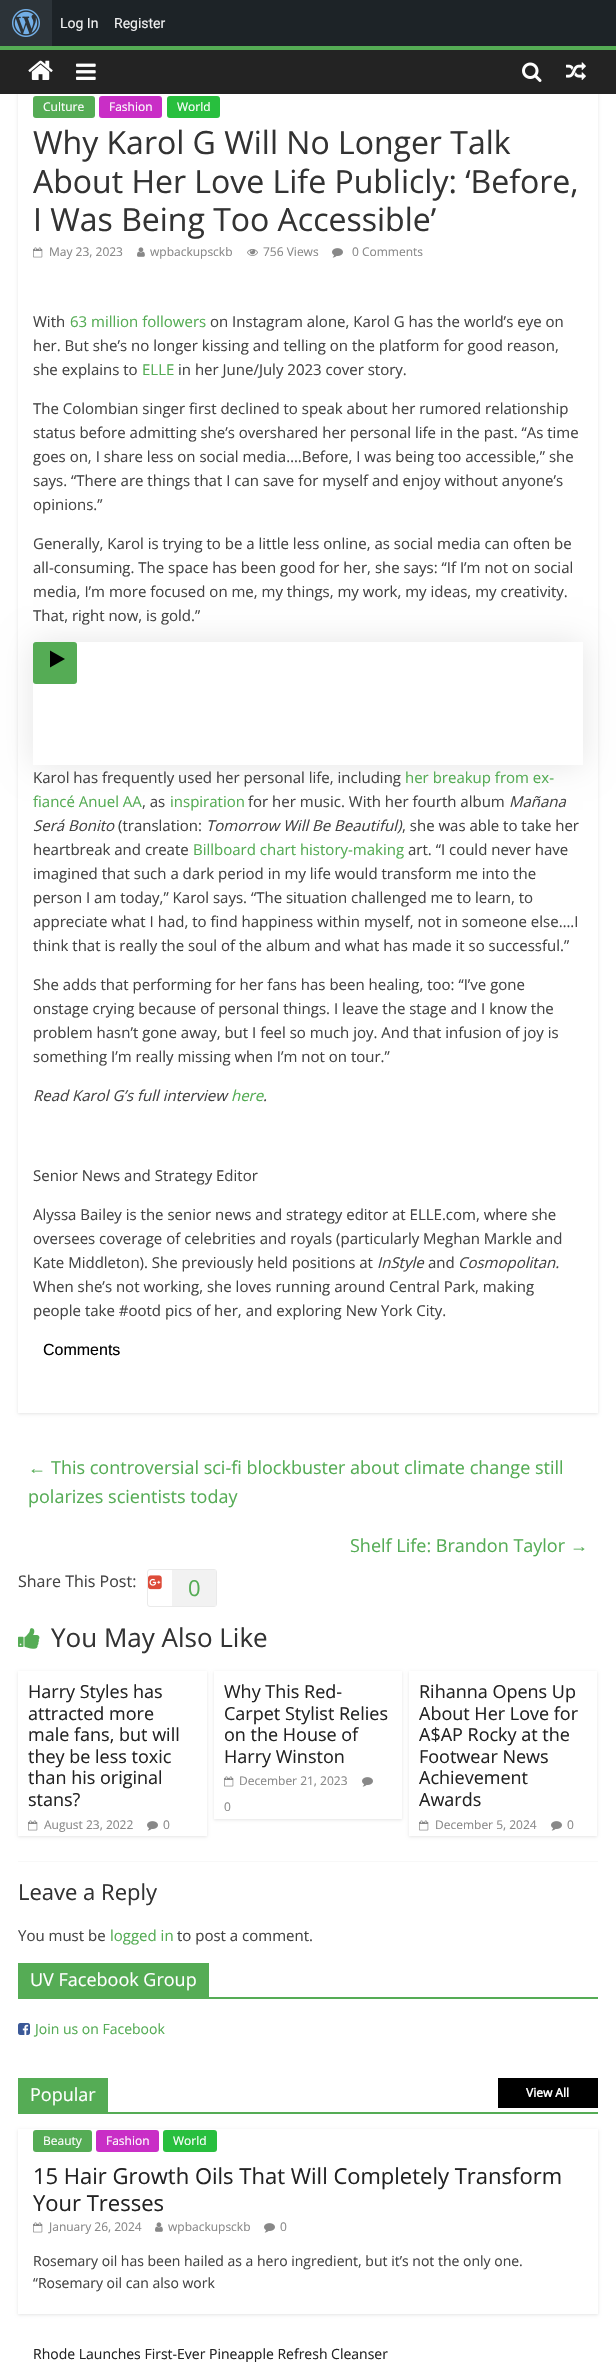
void draw(SkCanvas* canvas) {
    SkPaint paint;
    paint.setAntiAlias(true);
    canvas->clear(0xFFFFFFFF);
    paint.setColor(0xFF1D2327);
    canvas->drawRect(SkRect::MakeXYWH(52, 0, 564, 46), paint);
    paint.setColor(0xFF2C3338);
    canvas->drawRect(SkRect::MakeXYWH(0, 0, 52, 46), paint);
    canvas->drawImageRect(SkImages::DeferredFromEncodedData(SkData::MakeFromFileName("img1.png")), SkRect::MakeXYWH(12, 9, 28, 28), SkSamplingOptions());
    SkFont font1(fontMgr->matchFamilyStyle("Roboto", SkFontStyle::Normal()), 14);
    font1.setSubpixel(true);
    paint.setColor(0xFFF0F0F1);
    canvas->drawString("Log In", 60, 28, font1, paint);
    canvas->drawString("Register", 114, 28, font1, paint);
    canvas->save();
    canvas->clipPath(SkPathBuilder(SkPathFillType::kEvenOdd).moveTo(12, 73).lineTo(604, 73).lineTo(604, 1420).lineTo(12, 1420).close().moveTo(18, 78).lineTo(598, 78).lineTo(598, 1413).lineTo(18, 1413).close().detach(), true);
    paint.setColor(0x1A000000);
    paint.setMaskFilter(SkMaskFilter::MakeBlur(kNormal_SkBlurStyle, 1.5f));
    canvas->drawRect(SkRect::MakeXYWH(18, 79, 580, 1335), paint);
    paint.setMaskFilter(nullptr);
    canvas->restore();
    paint.setColor(0xFF232323);
    canvas->drawRect(SkRect::MakeXYWH(0, 50, 616, 44), paint);
    paint.setColor(0xFF55AC55);
    canvas->drawRect(SkRect::MakeXYWH(0, 46, 616, 4), paint);
    canvas->drawImageRect(SkImages::DeferredFromEncodedData(SkData::MakeFromFileName("img2.png")), SkRect::MakeXYWH(28, 60, 25, 20), SkSamplingOptions());
    canvas->drawImageRect(SkImages::DeferredFromEncodedData(SkData::MakeFromFileName("img3.png")), SkRect::MakeXYWH(76, 63, 20, 17), SkSamplingOptions());
    canvas->drawImageRect(SkImages::DeferredFromEncodedData(SkData::MakeFromFileName("img4.png")), SkRect::MakeXYWH(522, 62, 20, 20), SkSamplingOptions());
    canvas->drawImageRect(SkImages::DeferredFromEncodedData(SkData::MakeFromFileName("img5.png")), SkRect::MakeXYWH(566, 62, 20, 18), SkSamplingOptions());
    canvas->drawRoundRect(SkRect::MakeXYWH(33, 96, 62, 22), 3, 3, paint);
    SkFont font2(fontMgr->matchFamilyStyle("Open Sans", SkFontStyle::Normal()), 12);
    font2.setSubpixel(true);
    paint.setColor(0xFFFFFFFF);
    canvas->drawString("Culture", 43, 111, font2, paint);
    paint.setColor(0xFFC92EC6);
    canvas->drawRoundRect(SkRect::MakeXYWH(99, 96, 63, 22), 3, 3, paint);
    paint.setColor(0xFFFFFFFF);
    canvas->drawString("Fashion", 109, 111, font2, paint);
    paint.setColor(0xFF28BF3E);
    canvas->drawRoundRect(SkRect::MakeXYWH(167, 96, 53, 22), 3, 3, paint);
    paint.setColor(0xFFFFFFFF);
    canvas->drawString("World", 177, 111, font2, paint);
    SkFont font3(fontMgr->matchFamilyStyle("Open Sans", SkFontStyle::Normal()), 32);
    font3.setSubpixel(true);
    paint.setColor(0xFF333333);
    canvas->drawString("Why Karol G Will No Longer Talk", 33, 154, font3, paint);
    canvas->drawString("About Her Love Life Publicly: ‘Before,", 33, 193, font3, paint);
    canvas->drawString("I Was Being Too Accessible’", 33, 231, font3, paint);
    canvas->drawImageRect(SkImages::DeferredFromEncodedData(SkData::MakeFromFileName("img6.png")), SkRect::MakeXYWH(33, 247, 10, 11), SkSamplingOptions());
    paint.setColor(0xFF888888);
    canvas->drawString("May 23, 2023", 49, 256, font2, paint);
    canvas->drawImageRect(SkImages::DeferredFromEncodedData(SkData::MakeFromFileName("img7.png")), SkRect::MakeXYWH(137, 247, 8, 10), SkSamplingOptions());
    canvas->drawString("wpbackupsckb", 150, 256, font2, paint);
    canvas->drawImageRect(SkImages::DeferredFromEncodedData(SkData::MakeFromFileName("img8.png")), SkRect::MakeXYWH(247, 248, 11, 8), SkSamplingOptions());
    canvas->drawString("756 Views", 263, 256, font2, paint);
    canvas->drawImageRect(SkImages::DeferredFromEncodedData(SkData::MakeFromFileName("img9.png")), SkRect::MakeXYWH(332, 248, 11, 10), SkSamplingOptions());
    canvas->drawString("0 Comments", 352, 256, font2, paint);
    SkFont font4(fontMgr->matchFamilyStyle("Open Sans", SkFontStyle::Normal()), 15);
    font4.setSubpixel(true);
    paint.setColor(0xFF444444);
    canvas->drawString("With", 33, 327, font4, paint);
    paint.setColor(0xFF55AC55);
    canvas->drawString("63 million followers", 70, 327, font4, paint);
    paint.setColor(0xFF444444);
    canvas->drawString("on Instagram alone, Karol G has the world’s eye on", 210, 327, font4, paint);
    canvas->drawString("her. But she’s no longer kissing and telling on the platform for good reason,", 33, 351, font4, paint);
    canvas->drawString("she explains to", 33, 375, font4, paint);
    paint.setColor(0xFF55AC55);
    canvas->drawString("ELLE", 142, 375, font4, paint);
    paint.setColor(0xFF444444);
    canvas->drawString("in her June/July 2023 cover story.", 178, 375, font4, paint);
    canvas->drawString("The Colombian singer first declined to speak about her rumored relationship", 33, 414, font4, paint);
    canvas->drawString("status before admitting she’s overshared her personal life in the past. “As time", 33, 438, font4, paint);
    canvas->drawString("goes on, I share less on social media….Before, I was being too accessible,” she", 33, 462, font4, paint);
    canvas->drawString("says. “There are things that I can save for myself and enjoy without anyone’s", 33, 486, font4, paint);
    canvas->drawString("opinions.”", 33, 510, font4, paint);
    canvas->drawString("Generally, Karol is trying to be a little less online, as social media can often be", 33, 549, font4, paint);
    canvas->drawString("all-consuming. The space has been good for her, she says: “If I’m not on social", 33, 573, font4, paint);
    canvas->save();
    canvas->clipPath(SkPathBuilder(SkPathFillType::kEvenOdd).moveTo(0, 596).lineTo(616, 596).lineTo(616, 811).lineTo(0, 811).close().moveTo(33, 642).lineTo(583, 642).lineTo(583, 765).lineTo(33, 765).close().detach(), true);
    paint.setColor(0x1A000000);
    paint.setMaskFilter(SkMaskFilter::MakeBlur(kNormal_SkBlurStyle, 15));
    canvas->drawRect(SkRect::MakeXYWH(33, 642, 550, 123), paint);
    paint.setMaskFilter(nullptr);
    canvas->restore();
    paint.setColor(0xFF444444);
    canvas->drawString("media, I’m more focused on me, my things, my work, my ideas, my creativity.", 33, 597, font4, paint);
    canvas->drawString("That, right now, is gold.”", 33, 621, font4, paint);
    paint.setColor(0xFF55AC55);
    canvas->drawRoundRect(SkRect::MakeXYWH(33, 642, 44, 42), 3, 3, paint);
    paint.setColor(0xFF000000);
    canvas->drawPath(SkPathBuilder().moveTo(65, 659).lineTo(50, 667.5f).lineTo(50, 650.5f).close().detach(), paint);
    paint.setColor(0xFF444444);
    canvas->drawString("Karol has frequently used her personal life, including", 33, 783, font4, paint);
    paint.setColor(0xFF55AC55);
    canvas->drawString("her breakup from ex-", 405, 783, font4, paint);
    canvas->drawString("fiancé Anuel AA", 33, 807, font4, paint);
    paint.setColor(0xFF444444);
    canvas->drawString(", as", 142, 807, font4, paint);
    paint.setColor(0xFF55AC55);
    canvas->drawString("inspiration", 170, 807, font4, paint);
    paint.setColor(0xFF444444);
    canvas->drawString("for her music. With her fourth album", 248, 807, font4, paint);
    SkFont font5(fontMgr->matchFamilyStyle("Open Sans", SkFontStyle::Italic()), 15);
    font5.setSubpixel(true);
    canvas->drawString("Mañana", 509, 807, font5, paint);
    canvas->drawString("Será Bonito", 33, 831, font5, paint);
    canvas->drawString("(translation:", 118, 831, font4, paint);
    canvas->drawString("Tomorrow Will Be Beautiful)", 206, 831, font5, paint);
    canvas->drawString(", she was able to take her", 402, 831, font4, paint);
    canvas->drawString("heartbreak and create", 33, 855, font4, paint);
    paint.setColor(0xFF55AC55);
    canvas->drawString("Billboard chart history-making", 193, 855, font4, paint);
    paint.setColor(0xFF444444);
    canvas->drawString("art. “I could never have", 408, 855, font4, paint);
    canvas->drawString("imagined that such a dark period in my life would transform me into the", 33, 879, font4, paint);
    canvas->drawString("person I am today,” Karol says. “The situation challenged me to learn, to", 33, 903, font4, paint);
    canvas->drawString("appreciate what I had, to find happiness within myself, not in someone else….I", 33, 927, font4, paint);
    canvas->drawString("think that is really the soul of the album and what has made it so successful.”", 33, 951, font4, paint);
    canvas->drawString("She adds that performing for her fans has been healing, too: “I’ve gone", 33, 990, font4, paint);
    canvas->drawString("onstage crying because of personal things. I leave the stage and I know the", 33, 1014, font4, paint);
    canvas->drawString("problem hasn’t gone away, but I feel so much joy. And that infusion of joy is", 33, 1038, font4, paint);
    canvas->drawString("something I’m really missing when I’m not on tour.”", 33, 1062, font4, paint);
    canvas->drawString("Read Karol G’s full interview", 33, 1101, font5, paint);
    paint.setColor(0xFF55AC55);
    canvas->drawString("here", 231, 1101, font5, paint);
    paint.setColor(0xFF444444);
    canvas->drawString(".", 263, 1101, font5, paint);
    canvas->drawString("Senior News and Strategy Editor", 33, 1181, font4, paint);
    canvas->drawString("Alyssa Bailey is the senior news and strategy editor at ELLE.com, where she", 33, 1220, font4, paint);
    canvas->drawString("oversees coverage of celebrities and royals (particularly Meghan Markle and", 33, 1244, font4, paint);
    canvas->drawString("Kate Middleton). She previously held positions at", 33, 1268, font4, paint);
    canvas->drawString("InStyle", 377, 1268, font5, paint);
    canvas->drawString("and", 428, 1268, font4, paint);
    canvas->drawString("Cosmopolitan.", 458, 1268, font5, paint);
    canvas->drawString("When she’s not working, she loves running around Central Park, making", 33, 1292, font4, paint);
    canvas->drawString("people take #ootd pics of her, and exploring New York City.", 33, 1316, font4, paint);
    SkFont font6(fontMgr->matchFamilyStyle("Liberation Sans", SkFontStyle::Normal()), 16);
    font6.setSubpixel(true);
    paint.setColor(0xFF000000);
    canvas->drawString("Comments", 43, 1355, font6, paint);
    SkFont font7(fontMgr->matchFamilyStyle("Liberation Serif", SkFontStyle::Normal()), 18);
    font7.setSubpixel(true);
    paint.setColor(0xFF55AC55);
    canvas->drawString("←", 28, 1474, font7, paint);
    SkFont font8(fontMgr->matchFamilyStyle("Open Sans", SkFontStyle::Normal()), 18);
    font8.setSubpixel(true);
    canvas->drawString("This controversial sci-fi blockbuster about climate change still", 51, 1474, font8, paint);
    canvas->drawString("polarizes scientists today", 28, 1503, font8, paint);
    canvas->drawString("Shelf Life: Brandon Taylor", 350, 1552, font8, paint);
    canvas->drawString("→", 570, 1552, font7, paint);
    SkFont font9(fontMgr->matchFamilyStyle("Open Sans", SkFontStyle::Normal()), 16);
    font9.setSubpixel(true);
    paint.setColor(0xFF444444);
    canvas->drawString("Share This Post:", 18, 1587, font9, paint);
    paint.setStyle(SkPaint::kStroke_Style);
    paint.setStrokeWidth(1);
    paint.setColor(0xFFEAEAEA);
    canvas->drawRoundRect(SkRect::MakeXYWH(147.5f, 1569.5f, 69, 37), 2.5f, 2.5f, paint);
    canvas->drawImageRect(SkImages::DeferredFromEncodedData(SkData::MakeFromFileName("img10.png")), SkRect::MakeXYWH(148, 1575, 14, 15), SkSamplingOptions());
    paint.setStyle(SkPaint::kFill_Style);
    paint.setColor(0xFFF2F2F2);
    canvas->drawRect(SkRect::MakeXYWH(172, 1570, 44, 36), paint);
    SkFont font10(fontMgr->matchFamilyStyle("Open Sans", SkFontStyle::Normal()), 22);
    font10.setSubpixel(true);
    paint.setColor(0xFF55AC55);
    canvas->drawString("0", 188, 1596, font10, paint);
    canvas->drawImageRect(SkImages::DeferredFromEncodedData(SkData::MakeFromFileName("img11.png")), SkRect::MakeXYWH(18, 1628, 22, 21), SkSamplingOptions());
    SkFont font11(fontMgr->matchFamilyStyle("Open Sans", SkFontStyle::Normal()), 26);
    font11.setSubpixel(true);
    paint.setColor(0xFF333333);
    canvas->drawString("You May Also Like", 51, 1647, font11, paint);
    canvas->save();
    canvas->clipPath(SkPathBuilder(SkPathFillType::kEvenOdd).moveTo(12, 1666).lineTo(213, 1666).lineTo(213, 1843).lineTo(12, 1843).close().moveTo(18, 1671).lineTo(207, 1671).lineTo(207, 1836).lineTo(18, 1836).close().detach(), true);
    paint.setColor(0x1A000000);
    paint.setMaskFilter(SkMaskFilter::MakeBlur(kNormal_SkBlurStyle, 1.5f));
    canvas->drawRect(SkRect::MakeXYWH(18, 1672, 189, 165), paint);
    paint.setMaskFilter(nullptr);
    canvas->restore();
    paint.setColor(0xFF232323);
    canvas->drawString("Harry Styles has", 28, 1698, font8, paint);
    canvas->drawString("attracted more", 28, 1720, font8, paint);
    canvas->drawString("male fans, but will", 28, 1741, font8, paint);
    canvas->drawString("they be less toxic", 28, 1763, font8, paint);
    canvas->drawString("than his original", 28, 1784, font8, paint);
    canvas->drawString("stans?", 28, 1806, font8, paint);
    canvas->drawImageRect(SkImages::DeferredFromEncodedData(SkData::MakeFromFileName("img6.png")), SkRect::MakeXYWH(28, 1820, 10, 11), SkSamplingOptions());
    paint.setColor(0xFF888888);
    canvas->drawString("August 23, 2022", 44, 1829, font2, paint);
    canvas->drawImageRect(SkImages::DeferredFromEncodedData(SkData::MakeFromFileName("img9.png")), SkRect::MakeXYWH(147, 1821, 11, 10), SkSamplingOptions());
    canvas->drawString("0", 163, 1829, font2, paint);
    canvas->save();
    canvas->clipPath(SkPathBuilder(SkPathFillType::kEvenOdd).moveTo(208, 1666).lineTo(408, 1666).lineTo(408, 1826).lineTo(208, 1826).close().moveTo(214, 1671).lineTo(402, 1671).lineTo(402, 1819).lineTo(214, 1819).close().detach(), true);
    paint.setColor(0x1A000000);
    paint.setMaskFilter(SkMaskFilter::MakeBlur(kNormal_SkBlurStyle, 1.5f));
    canvas->drawRect(SkRect::MakeXYWH(214, 1672, 188, 148), paint);
    paint.setMaskFilter(nullptr);
    canvas->restore();
    paint.setColor(0xFF232323);
    canvas->drawString("Why This Red-", 224, 1698, font8, paint);
    canvas->drawString("Carpet Stylist Relies", 224, 1720, font8, paint);
    canvas->drawString("on the House of", 224, 1741, font8, paint);
    canvas->drawString("Harry Winston", 224, 1763, font8, paint);
    canvas->drawImageRect(SkImages::DeferredFromEncodedData(SkData::MakeFromFileName("img6.png")), SkRect::MakeXYWH(224, 1776, 10, 11), SkSamplingOptions());
    paint.setColor(0xFF888888);
    canvas->drawString("December 21, 2023", 239, 1785, font2, paint);
    canvas->drawImageRect(SkImages::DeferredFromEncodedData(SkData::MakeFromFileName("img9.png")), SkRect::MakeXYWH(362, 1777, 11, 10), SkSamplingOptions());
    canvas->drawString("0", 224, 1811, font2, paint);
    canvas->save();
    canvas->clipPath(SkPathBuilder(SkPathFillType::kEvenOdd).moveTo(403, 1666).lineTo(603, 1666).lineTo(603, 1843).lineTo(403, 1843).close().moveTo(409, 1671).lineTo(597, 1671).lineTo(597, 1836).lineTo(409, 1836).close().detach(), true);
    paint.setColor(0x1A000000);
    paint.setMaskFilter(SkMaskFilter::MakeBlur(kNormal_SkBlurStyle, 1.5f));
    canvas->drawRect(SkRect::MakeXYWH(409, 1672, 188, 165), paint);
    paint.setMaskFilter(nullptr);
    canvas->restore();
    paint.setColor(0xFF232323);
    canvas->drawString("Rihanna Opens Up", 419, 1698, font8, paint);
    canvas->drawString("About Her Love for", 419, 1720, font8, paint);
    canvas->drawString("A$AP Rocky at the", 419, 1741, font8, paint);
    canvas->drawString("Footwear News", 419, 1763, font8, paint);
    canvas->drawString("Achievement", 419, 1784, font8, paint);
    canvas->drawString("Awards", 419, 1806, font8, paint);
    canvas->drawImageRect(SkImages::DeferredFromEncodedData(SkData::MakeFromFileName("img6.png")), SkRect::MakeXYWH(419, 1820, 10, 11), SkSamplingOptions());
    paint.setColor(0xFF888888);
    canvas->drawString("December 5, 2024", 435, 1829, font2, paint);
    canvas->drawImageRect(SkImages::DeferredFromEncodedData(SkData::MakeFromFileName("img9.png")), SkRect::MakeXYWH(551, 1821, 11, 10), SkSamplingOptions());
    canvas->drawString("0", 567, 1829, font2, paint);
    paint.setColor(0xFFF8F8F8);
    canvas->drawRect(SkRect::MakeXYWH(18, 1861, 580, 1), paint);
    paint.setColor(0xFF333333);
    canvas->drawString("Leave a Reply", 18, 1900, font10, paint);
    paint.setColor(0xFF444444);
    canvas->drawString("You must be", 18, 1941, font4, paint);
    paint.setColor(0xFF55AC55);
    canvas->drawString("logged in", 110, 1941, font4, paint);
    paint.setColor(0xFF444444);
    canvas->drawString("to post a comment.", 177, 1941, font4, paint);
    paint.setColor(0xFF55AC55);
    canvas->drawRect(SkRect::MakeXYWH(18, 1997, 580, 2), paint);
    canvas->drawRect(SkRect::MakeXYWH(18, 1963, 191, 34), paint);
    paint.setColor(0xFFFFFFFF);
    canvas->drawString("UV Facebook Group", 30, 1986, font8, paint);
    canvas->drawImageRect(SkImages::DeferredFromEncodedData(SkData::MakeFromFileName("img12.png")), SkRect::MakeXYWH(18, 2023, 12, 12), SkSamplingOptions());
    SkFont font12(fontMgr->matchFamilyStyle("Open Sans", SkFontStyle::Normal()), 14);
    font12.setSubpixel(true);
    paint.setColor(0xFF55AC55);
    canvas->drawString("Join us on Facebook", 35, 2034, font12, paint);
    canvas->drawRect(SkRect::MakeXYWH(18, 2112, 580, 2), paint);
    canvas->drawRect(SkRect::MakeXYWH(18, 2078, 90, 34), paint);
    paint.setColor(0xFFFFFFFF);
    canvas->drawString("Popular", 30, 2101, font8, paint);
    paint.setColor(0xFF000000);
    canvas->drawRect(SkRect::MakeXYWH(498, 2078, 100, 30), paint);
    SkFont font13(fontMgr->matchFamilyStyle("Open Sans", SkFontStyle::Bold()), 12);
    font13.setSubpixel(true);
    paint.setColor(0xFFFFFFFF);
    canvas->drawString("View All", 526, 2097, font13, paint);
    canvas->save();
    canvas->clipPath(SkPathBuilder(SkPathFillType::kEvenOdd).moveTo(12, 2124).lineTo(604, 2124).lineTo(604, 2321).lineTo(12, 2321).close().moveTo(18, 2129).lineTo(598, 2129).lineTo(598, 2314).lineTo(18, 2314).close().detach(), true);
    paint.setColor(0x1A000000);
    paint.setMaskFilter(SkMaskFilter::MakeBlur(kNormal_SkBlurStyle, 1.5f));
    canvas->drawRect(SkRect::MakeXYWH(18, 2130, 580, 185), paint);
    paint.setMaskFilter(nullptr);
    canvas->restore();
    paint.setColor(0xFF55AC55);
    canvas->drawRoundRect(SkRect::MakeXYWH(33, 2130, 59, 22), 3, 3, paint);
    paint.setColor(0xFFFFFFFF);
    canvas->drawString("Beauty", 43, 2145, font2, paint);
    paint.setColor(0xFFC92EC6);
    canvas->drawRoundRect(SkRect::MakeXYWH(96, 2130, 63, 22), 3, 3, paint);
    paint.setColor(0xFFFFFFFF);
    canvas->drawString("Fashion", 106, 2145, font2, paint);
    paint.setColor(0xFF28BF3E);
    canvas->drawRoundRect(SkRect::MakeXYWH(163, 2130, 54, 22), 3, 3, paint);
    paint.setColor(0xFFFFFFFF);
    canvas->drawString("World", 173, 2145, font2, paint);
    paint.setColor(0xFF232323);
    canvas->drawString("15 Hair Growth Oils That Will Completely Transform", 33, 2184, font10, paint);
    canvas->drawString("Your Tresses", 33, 2211, font10, paint);
    canvas->drawImageRect(SkImages::DeferredFromEncodedData(SkData::MakeFromFileName("img6.png")), SkRect::MakeXYWH(33, 2222, 10, 11), SkSamplingOptions());
    paint.setColor(0xFF888888);
    canvas->drawString("January 26, 2024", 49, 2231, font2, paint);
    canvas->drawImageRect(SkImages::DeferredFromEncodedData(SkData::MakeFromFileName("img7.png")), SkRect::MakeXYWH(155, 2222, 8, 10), SkSamplingOptions());
    canvas->drawString("wpbackupsckb", 168, 2231, font2, paint);
    canvas->drawImageRect(SkImages::DeferredFromEncodedData(SkData::MakeFromFileName("img9.png")), SkRect::MakeXYWH(264, 2223, 11, 10), SkSamplingOptions());
    canvas->drawString("0", 280, 2231, font2, paint);
    paint.setColor(0xFF444444);
    canvas->drawString("Rosemary oil has been hailed as a hero ingredient, but it’s not the only one.", 33, 2266, font12, paint);
    canvas->drawString("“Rosemary oil can also work", 33, 2288, font12, paint);
    paint.setColor(0xFF232323);
    canvas->drawString("Rhode Launches First-Ever Pineapple Refresh Cleanser", 33, 2359, font12, paint);
}
